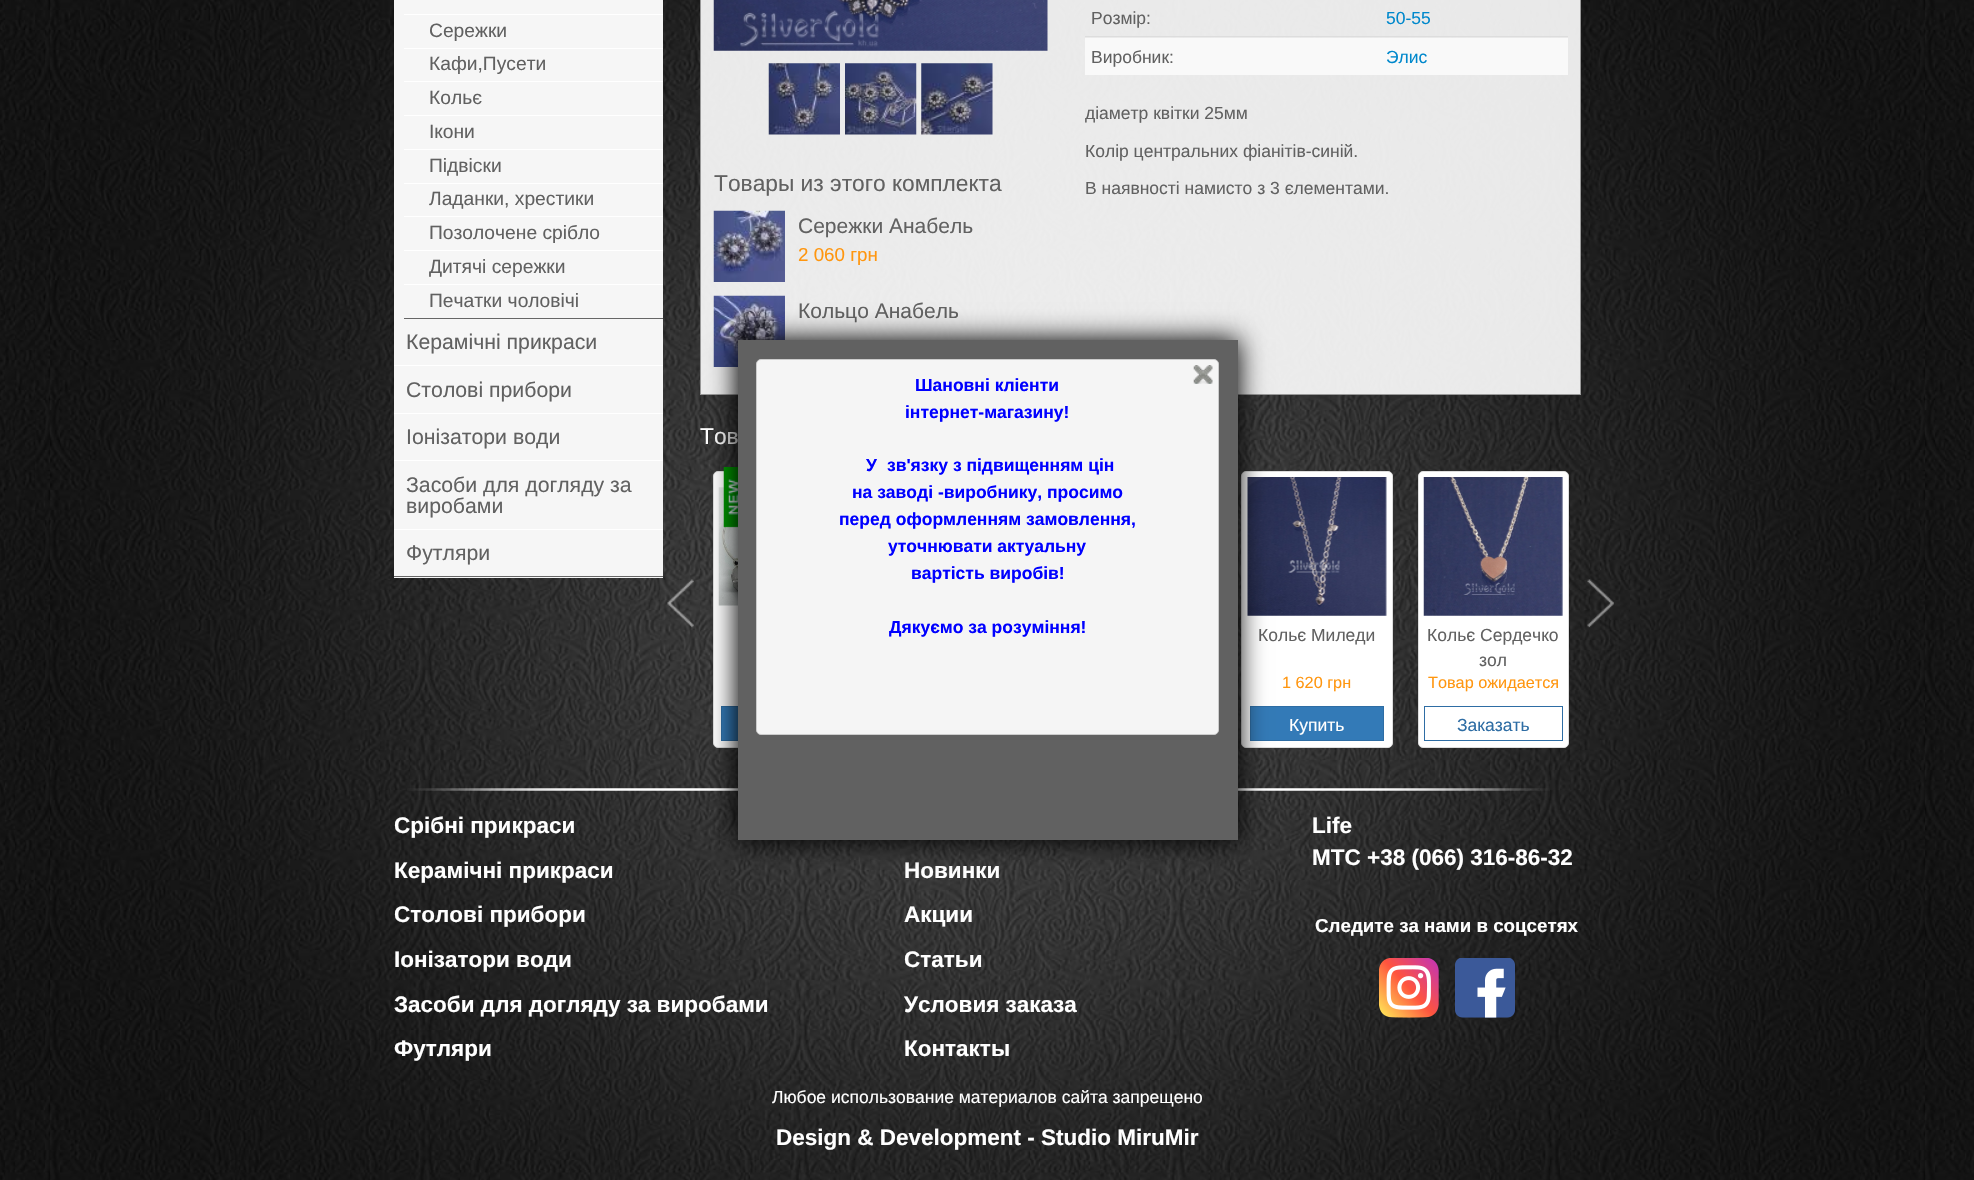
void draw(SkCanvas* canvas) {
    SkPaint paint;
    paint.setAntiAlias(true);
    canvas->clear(0xFFFFFFFF);
    canvas->drawImageRect(SkImages::DeferredFromEncodedData(SkData::MakeFromFileName("img1.png")), SkRect::MakeXYWH(0, 0, 1974, 1180), SkSamplingOptions());
    paint.setColor(0xFFF6F6F6);
    canvas->drawRect(SkRect::MakeXYWH(394, 0, 269, 365), paint);
    paint.setColor(0xFFFFFFFF);
    canvas->drawRect(SkRect::MakeXYWH(404, 14, 259, 1), paint);
    canvas->drawRect(SkRect::MakeXYWH(404, 48, 259, 1), paint);
    SkFont font1(fontMgr->matchFamilyStyle("Liberation Sans", SkFontStyle::Normal()), 19.25f);
    font1.setSubpixel(true);
    paint.setColor(0xFF616161);
    canvas->drawString("Сережки", 429, 37, font1, paint);
    paint.setColor(0xFFFFFFFF);
    canvas->drawRect(SkRect::MakeXYWH(404, 81, 259, 1), paint);
    paint.setColor(0xFF616161);
    canvas->drawString("Кафи,Пусети", 429, 70, font1, paint);
    paint.setColor(0xFFFFFFFF);
    canvas->drawRect(SkRect::MakeXYWH(404, 115, 259, 1), paint);
    paint.setColor(0xFF616161);
    canvas->drawString("Кольє", 429, 104, font1, paint);
    paint.setColor(0xFFFFFFFF);
    canvas->drawRect(SkRect::MakeXYWH(404, 149, 259, 1), paint);
    paint.setColor(0xFF616161);
    canvas->drawString("Ікони", 429, 138, font1, paint);
    paint.setColor(0xFFFFFFFF);
    canvas->drawRect(SkRect::MakeXYWH(404, 183, 259, 1), paint);
    paint.setColor(0xFF616161);
    canvas->drawString("Підвіски", 429, 172, font1, paint);
    paint.setColor(0xFFFFFFFF);
    canvas->drawRect(SkRect::MakeXYWH(404, 216, 259, 1), paint);
    paint.setColor(0xFF616161);
    canvas->drawString("Ладанки, хрестики", 429, 205, font1, paint);
    paint.setColor(0xFFFFFFFF);
    canvas->drawRect(SkRect::MakeXYWH(404, 250, 259, 1), paint);
    paint.setColor(0xFF616161);
    canvas->drawString("Позолочене срібло", 429, 239, font1, paint);
    paint.setColor(0xFFFFFFFF);
    canvas->drawRect(SkRect::MakeXYWH(404, 284, 259, 1), paint);
    paint.setColor(0xFF616161);
    canvas->drawString("Дитячі сережки", 429, 273, font1, paint);
    paint.setColor(0xFF666666);
    canvas->drawRect(SkRect::MakeXYWH(404, 318, 259, 1), paint);
    paint.setColor(0xFF616161);
    canvas->drawString("Печатки чоловічі", 429, 307, font1, paint);
    paint.setColor(0xFFFFFFFF);
    canvas->drawRect(SkRect::MakeXYWH(394, 365, 269, 1), paint);
    SkFont font2(fontMgr->matchFamilyStyle("Liberation Sans", SkFontStyle::Normal()), 21.25f);
    font2.setSubpixel(true);
    paint.setColor(0xFF616161);
    canvas->drawString("Керамічні прикраси", 406, 349, font2, paint);
    paint.setColor(0xFFF6F6F6);
    canvas->drawRect(SkRect::MakeXYWH(394, 366, 269, 47), paint);
    paint.setColor(0xFFFFFFFF);
    canvas->drawRect(SkRect::MakeXYWH(394, 413, 269, 1), paint);
    paint.setColor(0xFF616161);
    canvas->drawString("Столові прибори", 406, 397, font2, paint);
    paint.setColor(0xFFF6F6F6);
    canvas->drawRect(SkRect::MakeXYWH(394, 414, 269, 46), paint);
    paint.setColor(0xFFFFFFFF);
    canvas->drawRect(SkRect::MakeXYWH(394, 460, 269, 1), paint);
    paint.setColor(0xFF616161);
    canvas->drawString("Іонізатори води", 406, 444, font2, paint);
    paint.setColor(0xFFF6F6F6);
    canvas->drawRect(SkRect::MakeXYWH(394, 461, 269, 68), paint);
    paint.setColor(0xFFFFFFFF);
    canvas->drawRect(SkRect::MakeXYWH(394, 529, 269, 1), paint);
    paint.setColor(0xFF616161);
    canvas->drawString("Засоби для догляду за", 406, 492, font2, paint);
    canvas->drawString("виробами", 406, 513, font2, paint);
    paint.setColor(0xFFF6F6F6);
    canvas->drawRect(SkRect::MakeXYWH(394, 530, 269, 48), paint);
    paint.setColor(0xFF666666);
    canvas->drawRect(SkRect::MakeXYWH(394, 576, 269, 1), paint);
    paint.setColor(0xFF616161);
    canvas->drawString("Футляри", 406, 560, font2, paint);
    paint.setColor(0xE6FFFFFF);
    canvas->drawRect(SkRect::MakeXYWH(700.5f, -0.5f, 880, 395), paint);
    paint.setStyle(SkPaint::kStroke_Style);
    paint.setStrokeWidth(1);
    paint.setColor(0xFF999999);
    canvas->drawRect(SkRect::MakeXYWH(700.5f, -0.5f, 880, 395), paint);
    SkFont font3(fontMgr->matchFamilyStyle("Liberation Sans", SkFontStyle::Normal()), 17.5f);
    font3.setSubpixel(true);
    paint.setStyle(SkPaint::kFill_Style);
    paint.setColor(0xFF616161);
    canvas->drawString("Розмір:", 1091, 24, font3, paint);
    paint.setColor(0xFF0088CC);
    canvas->drawString("50-55", 1386, 24, font3, paint);
    paint.setColor(0xFFF9F9F9);
    canvas->drawRect(SkRect::MakeXYWH(1085, 38, 483, 37), paint);
    paint.setColor(0xFF616161);
    canvas->drawString("Виробник:", 1091, 63, font3, paint);
    paint.setColor(0xFFDDDDDD);
    canvas->drawRect(SkRect::MakeXYWH(1085, 36, 483, 1), paint);
    paint.setColor(0xFF0088CC);
    canvas->drawString("Элис", 1386, 63, font3, paint);
    paint.setColor(0xFF616161);
    canvas->drawString("діаметр квітки 25мм", 1085, 119, font3, paint);
    canvas->drawString("Колір центральних фіанітів-синій.", 1085, 157, font3, paint);
    canvas->drawString("В наявності намисто з 3 єлементами.", 1085, 194, font3, paint);
    canvas->drawImageRect(SkImages::DeferredFromEncodedData(SkData::MakeFromFileName("img2.png")), SkRect::MakeXYWH(713, 0, 335, 51), SkSamplingOptions());
    canvas->drawImageRect(SkImages::DeferredFromEncodedData(SkData::MakeFromFileName("img3.png")), SkRect::MakeXYWH(768, 63, 72, 72), SkSamplingOptions());
    canvas->drawImageRect(SkImages::DeferredFromEncodedData(SkData::MakeFromFileName("img4.png")), SkRect::MakeXYWH(845, 63, 72, 72), SkSamplingOptions());
    canvas->drawImageRect(SkImages::DeferredFromEncodedData(SkData::MakeFromFileName("img5.png")), SkRect::MakeXYWH(921, 63, 72, 72), SkSamplingOptions());
    SkFont font4(fontMgr->matchFamilyStyle("Liberation Sans", SkFontStyle::Normal()), 22.75f);
    font4.setSubpixel(true);
    canvas->drawString("Товары из этого комплекта", 714, 191, font4, paint);
    canvas->drawImageRect(SkImages::DeferredFromEncodedData(SkData::MakeFromFileName("img6.png")), SkRect::MakeXYWH(713, 210, 72, 72), SkSamplingOptions());
    SkFont font5(fontMgr->matchFamilyStyle("Liberation Sans", SkFontStyle::Normal()), 21);
    font5.setSubpixel(true);
    canvas->drawString("Сережки Анабель", 798, 233, font5, paint);
    SkFont font6(fontMgr->matchFamilyStyle("Liberation Sans", SkFontStyle::Normal()), 18.75f);
    font6.setSubpixel(true);
    paint.setColor(0xFFFF960F);
    canvas->drawString("2 060 грн", 798, 261, font6, paint);
    canvas->drawImageRect(SkImages::DeferredFromEncodedData(SkData::MakeFromFileName("img7.png")), SkRect::MakeXYWH(713, 295, 72, 72), SkSamplingOptions());
    paint.setColor(0xFF616161);
    canvas->drawString("Кольцо Анабель", 798, 318, font5, paint);
    paint.setColor(0xFFFFFFFF);
    canvas->drawString("Тов", 700, 444, font4, paint);
    canvas->drawImageRect(SkImages::DeferredFromEncodedData(SkData::MakeFromFileName("img8.png")), SkRect::MakeXYWH(667, 579, 27, 49), SkSamplingOptions());
    canvas->drawImageRect(SkImages::DeferredFromEncodedData(SkData::MakeFromFileName("img9.png")), SkRect::MakeXYWH(1587, 579, 27, 49), SkSamplingOptions());
    canvas->drawRoundRect(SkRect::MakeXYWH(713.5f, 471.5f, 150, 276), 4.5f, 4.5f, paint);
    paint.setStyle(SkPaint::kStroke_Style);
    paint.setColor(0xFFDDDDDD);
    canvas->drawRoundRect(SkRect::MakeXYWH(713.5f, 471.5f, 150, 276), 4.5f, 4.5f, paint);
    canvas->drawImageRect(SkImages::DeferredFromEncodedData(SkData::MakeFromFileName("img11.png")), SkRect::MakeXYWH(718, 487, 20, 119), SkSamplingOptions());
    canvas->drawImageRect(SkImages::DeferredFromEncodedData(SkData::MakeFromFileName("img10.png")), SkRect::MakeXYWH(723, 467, 15, 61), SkSamplingOptions());
    paint.setStyle(SkPaint::kFill_Style);
    paint.setColor(0xFF337AB7);
    canvas->drawRect(SkRect::MakeXYWH(722, 707, 16, 33), paint);
    paint.setStyle(SkPaint::kStroke_Style);
    paint.setColor(0xFF2E6DA4);
    canvas->drawRect(SkRect::MakeXYWH(721.5f, 706.5f, 133, 34), paint);
    paint.setStyle(SkPaint::kFill_Style);
    paint.setColor(0xFFFFFFFF);
    canvas->drawRoundRect(SkRect::MakeXYWH(1241.5f, 471.5f, 151, 276), 4.5f, 4.5f, paint);
    paint.setStyle(SkPaint::kStroke_Style);
    paint.setColor(0xFFDDDDDD);
    canvas->drawRoundRect(SkRect::MakeXYWH(1241.5f, 471.5f, 151, 276), 4.5f, 4.5f, paint);
    canvas->drawImageRect(SkImages::DeferredFromEncodedData(SkData::MakeFromFileName("img12.png")), SkRect::MakeXYWH(1247, 477, 140, 139), SkSamplingOptions());
    paint.setStyle(SkPaint::kFill_Style);
    paint.setColor(0xFF616161);
    canvas->drawString("Кольє Миледи", 1258, 641, font3, paint);
    SkFont font7(fontMgr->matchFamilyStyle("Liberation Sans", SkFontStyle::Normal()), 16.25f);
    font7.setSubpixel(true);
    paint.setColor(0xFFFF960F);
    canvas->drawString("1 620 грн", 1282, 688, font7, paint);
    paint.setColor(0xFF337AB7);
    canvas->drawRect(SkRect::MakeXYWH(1250.5f, 706.5f, 133, 34), paint);
    paint.setStyle(SkPaint::kStroke_Style);
    paint.setColor(0xFF2E6DA4);
    canvas->drawRect(SkRect::MakeXYWH(1250.5f, 706.5f, 133, 34), paint);
    paint.setStyle(SkPaint::kFill_Style);
    paint.setColor(0xFFFFFFFF);
    canvas->drawString("Купить", 1289, 731, font3, paint);
    canvas->drawRoundRect(SkRect::MakeXYWH(1418.5f, 471.5f, 150, 276), 4.5f, 4.5f, paint);
    paint.setStyle(SkPaint::kStroke_Style);
    paint.setColor(0xFFDDDDDD);
    canvas->drawRoundRect(SkRect::MakeXYWH(1418.5f, 471.5f, 150, 276), 4.5f, 4.5f, paint);
    canvas->drawImageRect(SkImages::DeferredFromEncodedData(SkData::MakeFromFileName("img13.png")), SkRect::MakeXYWH(1423, 477, 140, 139), SkSamplingOptions());
    paint.setStyle(SkPaint::kFill_Style);
    paint.setColor(0xFF616161);
    canvas->drawString("Кольє Сердечко", 1427, 641, font3, paint);
    canvas->drawString("зол", 1479, 666, font3, paint);
    paint.setColor(0xFFFF960F);
    canvas->drawString("Товар ожидается", 1428, 688, font7, paint);
    paint.setStyle(SkPaint::kStroke_Style);
    paint.setColor(0xFF2E6DA4);
    canvas->drawRect(SkRect::MakeXYWH(1424.5f, 706.5f, 138, 34), paint);
    paint.setStyle(SkPaint::kFill_Style);
    canvas->drawString("Заказать", 1457, 731, font3, paint);
    canvas->drawImageRect(SkImages::DeferredFromEncodedData(SkData::MakeFromFileName("img14.png")), SkRect::MakeXYWH(407, 788, 1143, 3), SkSamplingOptions());
    SkFont font8(fontMgr->matchFamilyStyle("Liberation Sans", SkFontStyle::Bold()), 22.5f);
    font8.setSubpixel(true);
    paint.setColor(0xFFFFFFFF);
    canvas->drawString("Срібні прикраси", 394, 833, font8, paint);
    canvas->drawString("Керамічні прикраси", 394, 878, font8, paint);
    canvas->drawString("Столові прибори", 394, 922, font8, paint);
    canvas->drawString("Іонізатори води", 394, 967, font8, paint);
    canvas->drawString("Засоби для догляду за виробами", 394, 1012, font8, paint);
    canvas->drawString("Футляри", 394, 1056, font8, paint);
    canvas->drawString("Новинки", 904, 878, font8, paint);
    canvas->drawString("Акции", 904, 922, font8, paint);
    canvas->drawString("Статьи", 904, 967, font8, paint);
    canvas->drawString("Условия заказа", 904, 1012, font8, paint);
    canvas->drawString("Контакты", 904, 1056, font8, paint);
    canvas->drawString("Life", 1312, 833, font8, paint);
    canvas->drawString("МТС +38 (066) 316-86-32", 1312, 865, font8, paint);
    SkFont font9(fontMgr->matchFamilyStyle("Liberation Sans", SkFontStyle::Bold()), 18.75f);
    font9.setSubpixel(true);
    canvas->drawString("Следите за нами в соцсетях", 1315, 932, font9, paint);
    canvas->drawImageRect(SkImages::DeferredFromEncodedData(SkData::MakeFromFileName("img15.png")), SkRect::MakeXYWH(1379, 958, 60, 60), SkSamplingOptions());
    canvas->drawImageRect(SkImages::DeferredFromEncodedData(SkData::MakeFromFileName("img16.png")), SkRect::MakeXYWH(1455, 958, 60, 60), SkSamplingOptions());
    canvas->drawString("Любое использование материалов сайта запрещено", 772, 1103, font3, paint);
    canvas->drawString("Design & Development - Studio MiruMir", 776, 1145, font8, paint);
    paint.setColor(0xFF000000);
    paint.setMaskFilter(SkMaskFilter::MakeBlur(kNormal_SkBlurStyle, 12.5f));
    canvas->drawRect(SkRect::MakeXYWH(736, 339, 503, 502), paint);
    paint.setMaskFilter(nullptr);
    paint.setColor(0xFF616161);
    canvas->drawRect(SkRect::MakeXYWH(738, 340, 500, 500), paint);
    paint.setColor(0xFFF5F5F5);
    canvas->drawRoundRect(SkRect::MakeXYWH(756.5f, 359.5f, 462, 375), 4.5f, 4.5f, paint);
    paint.setStyle(SkPaint::kStroke_Style);
    paint.setColor(0xFFCCCCCC);
    canvas->drawRoundRect(SkRect::MakeXYWH(756.5f, 359.5f, 462, 375), 4.5f, 4.5f, paint);
    canvas->drawImageRect(SkImages::DeferredFromEncodedData(SkData::MakeFromFileName("img17.png")), SkRect::MakeXYWH(1193, 365, 20, 19), SkSamplingOptions());
    SkFont font10(fontMgr->matchFamilyStyle("Liberation Sans", SkFontStyle::Bold()), 17.5f);
    font10.setSubpixel(true);
    paint.setStyle(SkPaint::kFill_Style);
    paint.setColor(0xFF0000FF);
    canvas->drawString("Шановні кліенти", 915, 391, font10, paint);
    canvas->drawString("інтернет-магазину!", 905, 418, font10, paint);
    canvas->drawString("У", 866, 471, font10, paint);
    canvas->drawString("зв'язку з підвищенням цін", 887, 471, font10, paint);
    canvas->drawString("на заводi -виробнику, просимо", 852, 498, font10, paint);
    canvas->drawString("перед оформленням замовлення,", 839, 525, font10, paint);
    canvas->drawString("уточнювати актуальну", 888, 552, font10, paint);
    canvas->drawString("вартість виробiв!", 911, 579, font10, paint);
    canvas->drawString("Дякуємо за розуміння!", 889, 633, font10, paint);
}
